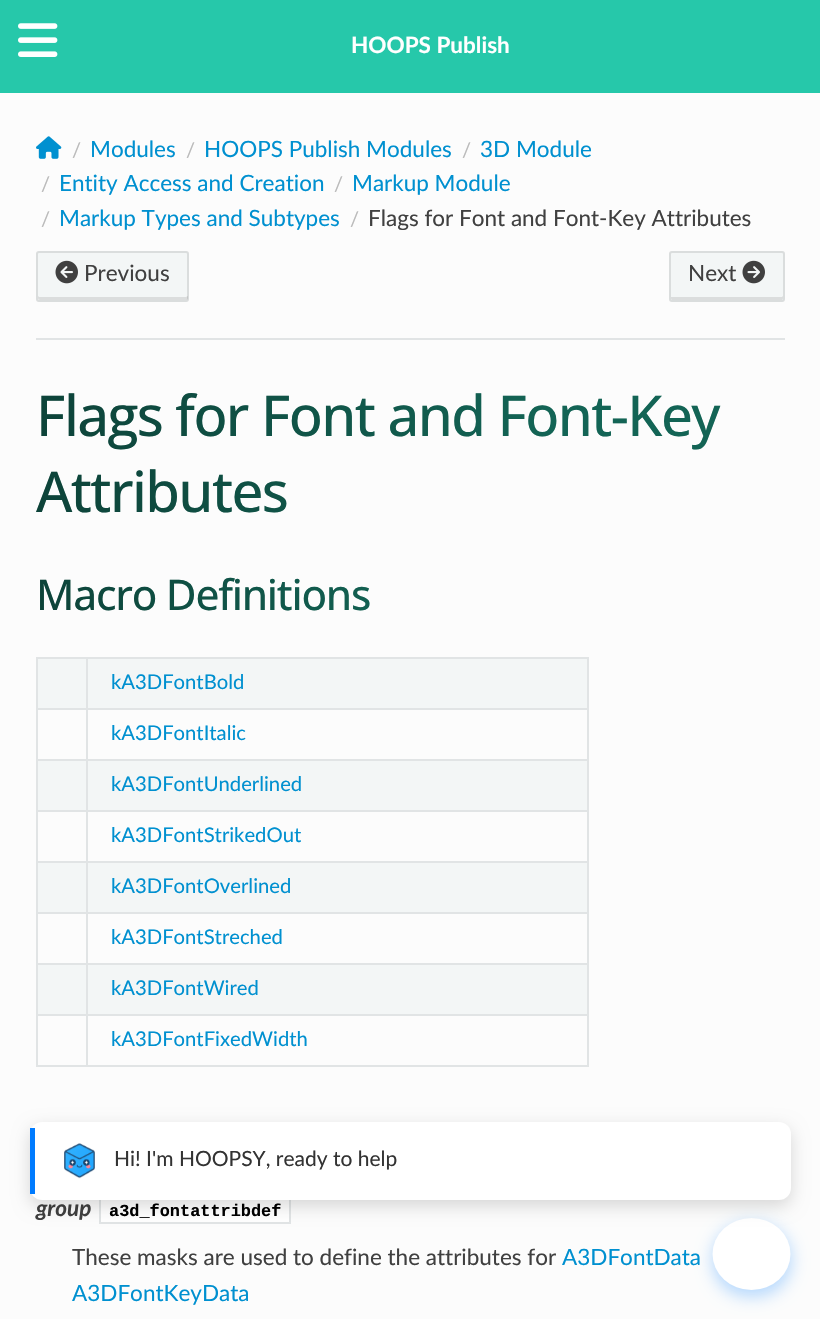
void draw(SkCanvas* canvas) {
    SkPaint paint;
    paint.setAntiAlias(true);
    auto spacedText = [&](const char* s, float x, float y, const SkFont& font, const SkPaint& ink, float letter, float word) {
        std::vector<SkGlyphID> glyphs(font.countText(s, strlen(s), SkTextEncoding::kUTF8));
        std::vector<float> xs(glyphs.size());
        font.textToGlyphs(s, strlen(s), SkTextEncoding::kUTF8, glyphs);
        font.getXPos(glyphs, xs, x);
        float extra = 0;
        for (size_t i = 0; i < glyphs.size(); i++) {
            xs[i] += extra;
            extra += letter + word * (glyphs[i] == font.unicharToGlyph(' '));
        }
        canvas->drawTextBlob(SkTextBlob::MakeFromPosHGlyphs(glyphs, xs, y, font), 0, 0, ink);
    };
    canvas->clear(0xFFFCFCFC);
    paint.setColor(0xFF26C8AA);
    canvas->drawRect(SkRect::MakeXYWH(0, 0, 820, 93), paint);
    canvas->drawImageRect(SkImages::DeferredFromEncodedData(SkData::MakeFromFileName("img1.png")), SkRect::MakeXYWH(18, 23, 40, 34), SkSamplingOptions());
    SkFont font1(fontMgr->matchFamilyStyle("Lato", SkFontStyle::Bold()), 22.5f);
    font1.setSubpixel(true);
    paint.setColor(0xFFFFFFFF);
    canvas->drawString("HOOPS Publish", 351, 53, font1, paint);
    canvas->drawImageRect(SkImages::DeferredFromEncodedData(SkData::MakeFromFileName("img2.png")), SkRect::MakeXYWH(36, 136, 26, 23), SkSamplingOptions());
    SkFont font2(fontMgr->matchFamilyStyle("Lato", SkFontStyle::Normal()), 20);
    font2.setSubpixel(true);
    paint.setColor(0xFFBBBBBB);
    canvas->drawString("/", 72, 157, font2, paint);
    SkFont font3(fontMgr->matchFamilyStyle("Lato", SkFontStyle::Normal()), 22.5f);
    font3.setSubpixel(true);
    paint.setColor(0xFF0090D0);
    canvas->drawString("Modules", 90, 157, font3, paint);
    paint.setColor(0xFFBBBBBB);
    canvas->drawString("/", 186, 157, font2, paint);
    paint.setColor(0xFF0090D0);
    canvas->drawString("HOOPS Publish Modules", 204, 157, font3, paint);
    paint.setColor(0xFFBBBBBB);
    canvas->drawString("/", 462, 157, font2, paint);
    paint.setColor(0xFF0090D0);
    canvas->drawString("3D Module", 480, 157, font3, paint);
    paint.setColor(0xFFBBBBBB);
    canvas->drawString("/", 41, 191, font2, paint);
    paint.setColor(0xFF0090D0);
    canvas->drawString("Entity Access and Creation", 59, 191, font3, paint);
    paint.setColor(0xFFBBBBBB);
    canvas->drawString("/", 334, 191, font2, paint);
    paint.setColor(0xFF0090D0);
    canvas->drawString("Markup Module", 352, 191, font3, paint);
    paint.setColor(0xFFBBBBBB);
    canvas->drawString("/", 41, 226, font2, paint);
    paint.setColor(0xFF0090D0);
    canvas->drawString("Markup Types and Subtypes", 59, 226, font3, paint);
    paint.setColor(0xFFBBBBBB);
    canvas->drawString("/", 350, 226, font2, paint);
    paint.setColor(0xFF404040);
    canvas->drawString("Flags for Font and Font-Key Attributes", 368, 226, font3, paint);
    paint.setColor(0xFFF3F6F6);
    canvas->drawRoundRect(SkRect::MakeXYWH(36, 251, 153, 51), 3, 3, paint);
    paint.setColor(0xFFDBDDDD);
    canvas->drawPath(SkPathBuilder().moveTo(38, 296).lineTo(38, 298).cubicTo(38, 299, 39, 300, 40, 300).lineTo(186, 300).cubicTo(187, 300, 188, 299, 188, 298).lineTo(188, 296).lineTo(186, 297).lineTo(88, 297).lineTo(39, 297).close().detach(), paint);
    paint.setStyle(SkPaint::kStroke_Style);
    paint.setStrokeWidth(2);
    paint.setColor(0x1A000000);
    canvas->drawRoundRect(SkRect::MakeXYWH(37, 252, 151, 49), 2, 2, paint);
    canvas->drawImageRect(SkImages::DeferredFromEncodedData(SkData::MakeFromFileName("img3.png")), SkRect::MakeXYWH(55, 260, 23, 24), SkSamplingOptions());
    paint.setStyle(SkPaint::kFill_Style);
    paint.setColor(0xFF404040);
    canvas->drawString("Previous", 84, 281, font3, paint);
    paint.setColor(0xFFF3F6F6);
    canvas->drawRoundRect(SkRect::MakeXYWH(669, 251, 116, 51), 3, 3, paint);
    paint.setColor(0xFFDBDDDD);
    canvas->drawPath(SkPathBuilder().moveTo(671, 297).lineTo(671, 298).cubicTo(671, 299, 672, 300, 672, 300).lineTo(782, 300).cubicTo(782, 300, 783, 299, 783, 298).lineTo(783, 296).lineTo(782, 297).close().detach(), paint);
    paint.setStyle(SkPaint::kStroke_Style);
    paint.setColor(0x1A000000);
    canvas->drawRoundRect(SkRect::MakeXYWH(670, 252, 114, 49), 2, 2, paint);
    paint.setStyle(SkPaint::kFill_Style);
    paint.setColor(0xFF404040);
    canvas->drawString("Next", 688, 281, font3, paint);
    canvas->drawImageRect(SkImages::DeferredFromEncodedData(SkData::MakeFromFileName("img4.png")), SkRect::MakeXYWH(742, 260, 23, 24), SkSamplingOptions());
    paint.setColor(0xFFE1E4E5);
    canvas->drawRect(SkRect::MakeXYWH(36, 338, 749, 2), paint);
    SkFont font4(fontMgr->matchFamilyStyle("Open Sans", SkFontStyle(500, SkFontStyle::kNormal_Width, SkFontStyle::kUpright_Slant)), 56.25f);
    font4.setSubpixel(true);
    {
        const SkColor colors[] = {0xFF0D4339, 0xFF136455};
        const float stops[] = {0, 0.69f};
        const SkPoint ends[] = {{36, 452}, {784, 452}};
        paint.setShader(SkGradientShader::MakeLinear(ends, colors, stops, 2, SkTileMode::kClamp));
        paint.setAlpha(255);
    }
    spacedText("Flags for Font and Font-Key", 36, 436, font4, paint, -1.6f, 0);
    spacedText("Attributes", 36, 512, font4, paint, -1.6f, 0);
    SkFont font5(fontMgr->matchFamilyStyle("Open Sans", SkFontStyle(500, SkFontStyle::kNormal_Width, SkFontStyle::kUpright_Slant)), 42.25f);
    font5.setSubpixel(true);
    {
        const SkColor colors[] = {0xFF0D4339, 0xFF136455};
        const float stops[] = {0, 0.52f};
        const SkPoint ends[] = {{36, 593}, {784, 593}};
        paint.setShader(SkGradientShader::MakeLinear(ends, colors, stops, 2, SkTileMode::kClamp));
        paint.setAlpha(255);
    }
    spacedText("Macro Definitions", 36, 610, font5, paint, -1.25f, 0);
    paint.setShader(nullptr);
    paint.setColor(0xFFE1E4E5);
    canvas->drawRect(SkRect::MakeXYWH(36, 657, 552, 2), paint);
    canvas->drawRect(SkRect::MakeXYWH(587, 657, 2, 410), paint);
    canvas->drawRect(SkRect::MakeXYWH(36, 1065, 552, 2), paint);
    canvas->drawRect(SkRect::MakeXYWH(36, 657, 2, 410), paint);
    paint.setColor(0xFFF3F6F6);
    canvas->drawRect(SkRect::MakeXYWH(38, 659, 48, 49), paint);
    canvas->drawRect(SkRect::MakeXYWH(88, 659, 499, 49), paint);
    paint.setColor(0xFFE1E4E5);
    canvas->drawRect(SkRect::MakeXYWH(86, 708, 502, 2), paint);
    canvas->drawRect(SkRect::MakeXYWH(86, 759, 502, 2), paint);
    canvas->drawRect(SkRect::MakeXYWH(86, 810, 502, 2), paint);
    canvas->drawRect(SkRect::MakeXYWH(86, 861, 502, 2), paint);
    canvas->drawRect(SkRect::MakeXYWH(86, 912, 502, 2), paint);
    canvas->drawRect(SkRect::MakeXYWH(86, 963, 502, 2), paint);
    canvas->drawRect(SkRect::MakeXYWH(86, 1014, 502, 2), paint);
    canvas->drawRect(SkRect::MakeXYWH(86, 1014, 2, 53), paint);
    canvas->drawRect(SkRect::MakeXYWH(36, 1014, 51, 2), paint);
    canvas->drawRect(SkRect::MakeXYWH(86, 963, 2, 53), paint);
    canvas->drawRect(SkRect::MakeXYWH(36, 963, 51, 2), paint);
    canvas->drawRect(SkRect::MakeXYWH(86, 912, 2, 53), paint);
    canvas->drawRect(SkRect::MakeXYWH(36, 912, 51, 2), paint);
    canvas->drawRect(SkRect::MakeXYWH(86, 861, 2, 53), paint);
    canvas->drawRect(SkRect::MakeXYWH(36, 861, 51, 2), paint);
    canvas->drawRect(SkRect::MakeXYWH(86, 810, 2, 53), paint);
    canvas->drawRect(SkRect::MakeXYWH(36, 810, 51, 2), paint);
    canvas->drawRect(SkRect::MakeXYWH(86, 759, 2, 53), paint);
    canvas->drawRect(SkRect::MakeXYWH(36, 759, 51, 2), paint);
    canvas->drawRect(SkRect::MakeXYWH(86, 708, 2, 53), paint);
    canvas->drawRect(SkRect::MakeXYWH(36, 708, 51, 2), paint);
    canvas->drawRect(SkRect::MakeXYWH(86, 657, 2, 53), paint);
    SkFont font6(fontMgr->matchFamilyStyle("Lato", SkFontStyle::Normal()), 20.25f);
    font6.setSubpixel(true);
    paint.setColor(0xFF0090D0);
    canvas->drawString("kA3DFontBold", 111, 689, font6, paint);
    canvas->drawString("kA3DFontItalic", 111, 740, font6, paint);
    paint.setColor(0xFFF3F6F6);
    canvas->drawRect(SkRect::MakeXYWH(38, 761, 48, 49), paint);
    canvas->drawRect(SkRect::MakeXYWH(88, 761, 499, 49), paint);
    paint.setColor(0xFF0090D0);
    canvas->drawString("kA3DFontUnderlined", 111, 791, font6, paint);
    canvas->drawString("kA3DFontStrikedOut", 111, 842, font6, paint);
    paint.setColor(0xFFF3F6F6);
    canvas->drawRect(SkRect::MakeXYWH(38, 863, 48, 49), paint);
    canvas->drawRect(SkRect::MakeXYWH(88, 863, 499, 49), paint);
    paint.setColor(0xFF0090D0);
    canvas->drawString("kA3DFontOverlined", 111, 893, font6, paint);
    canvas->drawString("kA3DFontStreched", 111, 944, font6, paint);
    paint.setColor(0xFFF3F6F6);
    canvas->drawRect(SkRect::MakeXYWH(38, 965, 48, 49), paint);
    canvas->drawRect(SkRect::MakeXYWH(88, 965, 499, 49), paint);
    paint.setColor(0xFF0090D0);
    canvas->drawString("kA3DFontWired", 111, 995, font6, paint);
    canvas->drawString("kA3DFontFixedWidth", 111, 1046, font6, paint);
    SkFont font7(fontMgr->matchFamilyStyle("Lato", SkFontStyle::BoldItalic()), 22.5f);
    font7.setSubpixel(true);
    paint.setColor(0xFF404040);
    canvas->drawString("group", 36, 1216, font7, paint);
    paint.setColor(0xFFFFFFFF);
    canvas->drawRect(SkRect::MakeXYWH(101, 1200, 188, 22), paint);
    paint.setStyle(SkPaint::kStroke_Style);
    paint.setColor(0xFFE1E4E5);
    canvas->drawRect(SkRect::MakeXYWH(100, 1198, 190, 25), paint);
    SkFont font8(fontMgr->matchFamilyStyle("Liberation Mono", SkFontStyle::Bold()), 16.9f);
    font8.setSubpixel(true);
    paint.setStyle(SkPaint::kFill_Style);
    paint.setColor(0xFF000000);
    canvas->drawString("a3d_fontattribdef", 109, 1216, font8, paint);
    paint.setColor(0xFF404040);
    canvas->drawString("These masks are used to define the attributes for", 72, 1265, font3, paint);
    paint.setColor(0xFF0090D0);
    canvas->drawString("A3DFontData", 562, 1265, font3, paint);
    canvas->drawString("A3DFontKeyData", 72, 1301, font3, paint);
    paint.setColor(0x4D007BFF);
    paint.setMaskFilter(SkMaskFilter::MakeBlur(kNormal_SkBlurStyle, 8.5f));
    canvas->drawRoundRect(SkRect::MakeXYWH(713, 1224, 78, 72), 36, 36, paint);
    paint.setMaskFilter(nullptr);
    paint.setColor(0xFFFFFFFF);
    canvas->drawOval(SkRect::MakeXYWH(712.5f, 1218, 78, 72), paint);
    paint.setColor(0x26000000);
    paint.setMaskFilter(SkMaskFilter::MakeBlur(kNormal_SkBlurStyle, 8.5f));
    canvas->drawRoundRect(SkRect::MakeXYWH(30, 1128, 761, 78), 12, 12, paint);
    paint.setMaskFilter(nullptr);
    paint.setColor(0xFFFFFFFF);
    canvas->drawRoundRect(SkRect::MakeXYWH(30, 1122, 761, 78), 12, 12, paint);
    paint.setColor(0xFF007BFF);
    canvas->drawRect(SkRect::MakeXYWH(30, 1128, 5, 66), paint);
    canvas->drawImageRect(SkImages::DeferredFromEncodedData(SkData::MakeFromFileName("img5.png")), SkRect::MakeXYWH(64, 1143, 31, 36), SkSamplingOptions());
    SkFont font9(fontMgr->matchFamilyStyle("Lato", SkFontStyle::Normal()), 21);
    font9.setSubpixel(true);
    paint.setColor(0xFF333333);
    canvas->drawString("Hi! I'm HOOPSY, ready to help", 114, 1166, font9, paint);
}
